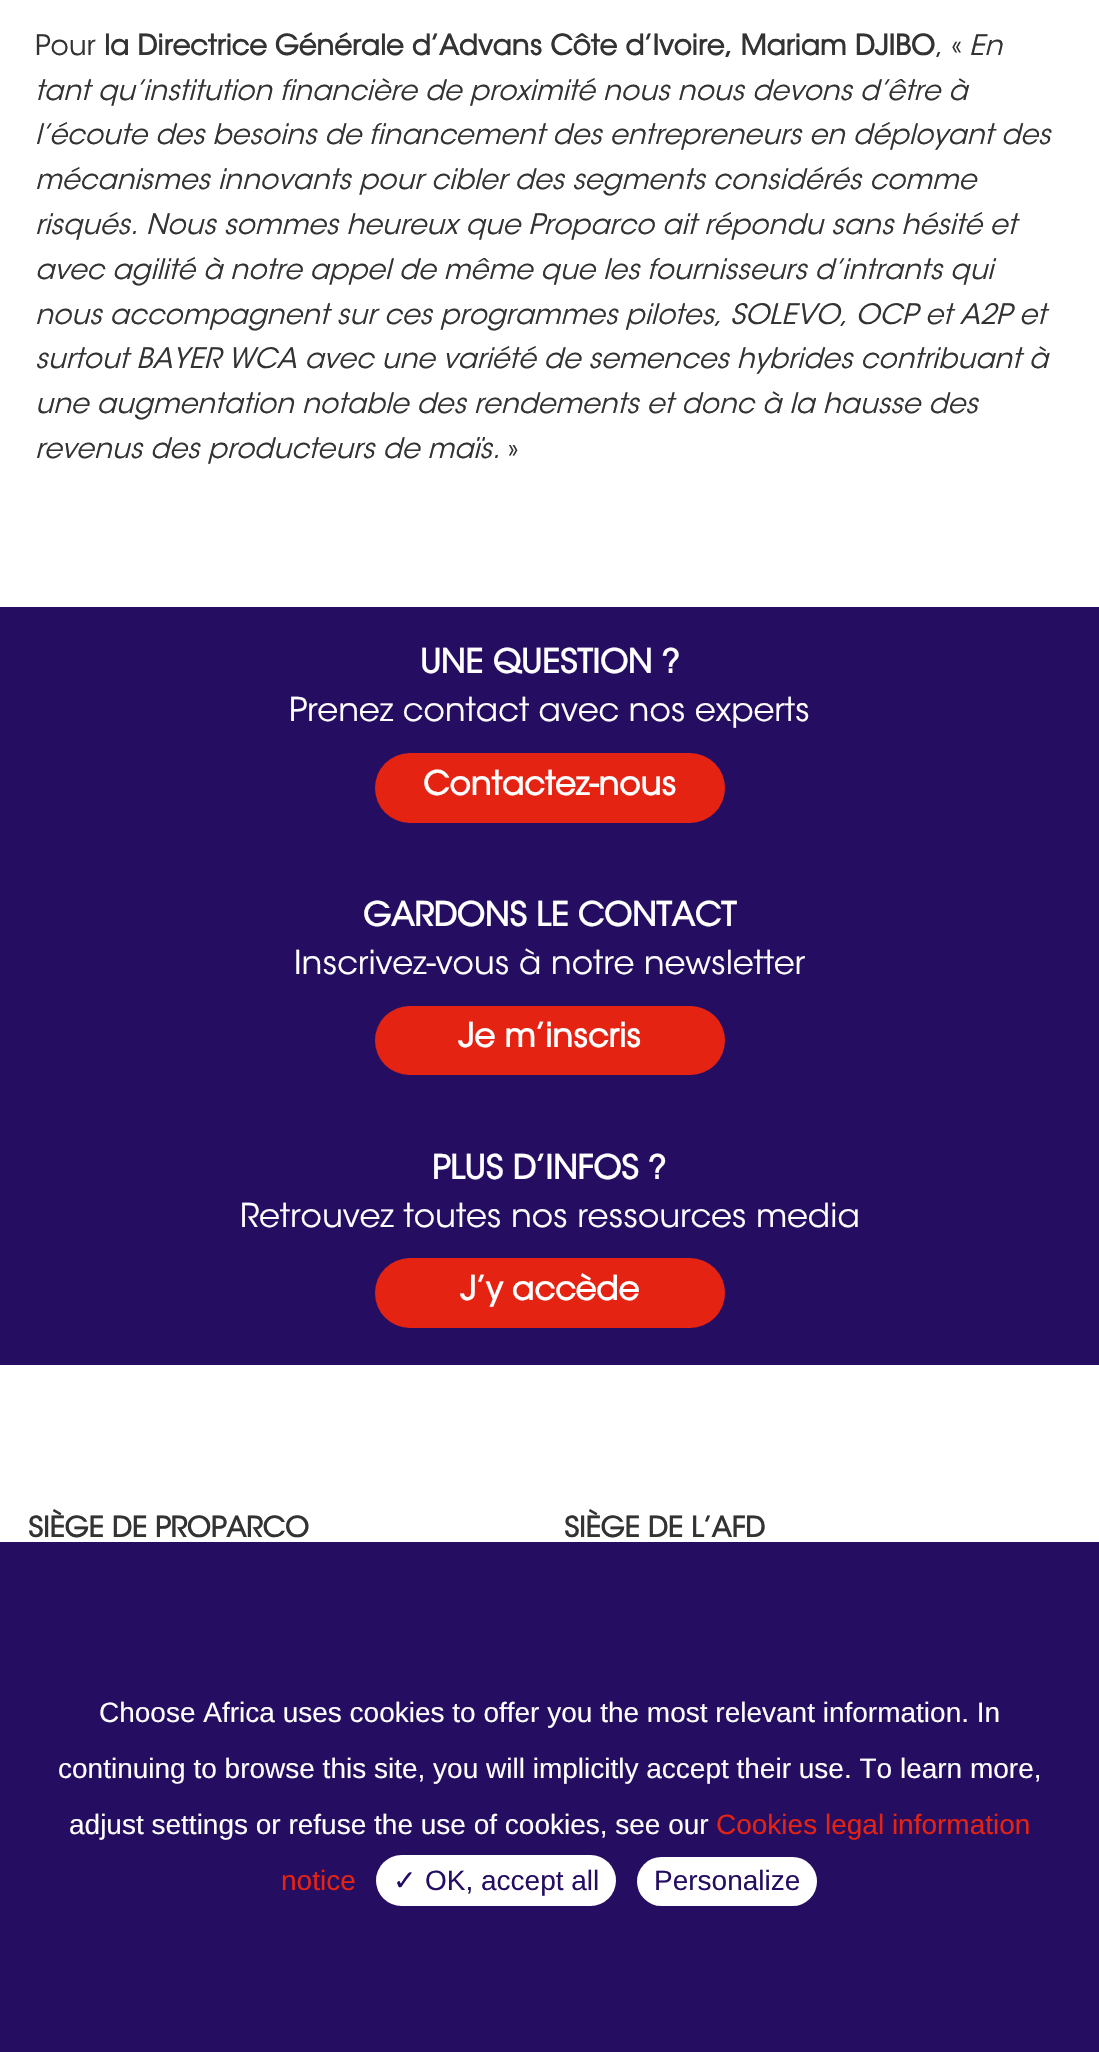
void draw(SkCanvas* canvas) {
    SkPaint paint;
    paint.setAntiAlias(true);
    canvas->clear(0xFFFFFFFF);
    SkFont font1(fontMgr->matchFamilyStyle("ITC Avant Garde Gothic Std", SkFontStyle(300, SkFontStyle::kNormal_Width, SkFontStyle::kUpright_Slant)), 28);
    font1.setSubpixel(true);
    paint.setColor(0xFF333333);
    canvas->drawString("Pour", 35, 55, font1, paint);
    SkFont font2(fontMgr->matchFamilyStyle("ITC Avant Garde Gothic Std", SkFontStyle::Bold()), 28);
    font2.setSubpixel(true);
    canvas->drawString("la Directrice Générale d’Advans Côte d’Ivoire, Mariam DJIBO", 104, 55, font2, paint);
    canvas->drawString(", «", 935, 55, font1, paint);
    SkFont font3(fontMgr->matchFamilyStyle("ITC Avant Garde Gothic Std", SkFontStyle(300, SkFontStyle::kNormal_Width, SkFontStyle::kItalic_Slant)), 28);
    font3.setSubpixel(true);
    canvas->drawString("En", 969, 55, font3, paint);
    canvas->drawString("tant qu’institution financière de proximité nous nous devons d’être à", 35, 100, font3, paint);
    canvas->drawString("l’écoute des besoins de financement des entrepreneurs en déployant des", 35, 144, font3, paint);
    canvas->drawString("mécanismes innovants pour cibler des segments considérés comme", 35, 189, font3, paint);
    canvas->drawString("risqués. Nous sommes heureux que Proparco ait répondu sans hésité et", 35, 234, font3, paint);
    canvas->drawString("avec agilité à notre appel de même que les fournisseurs d’intrants qui", 35, 279, font3, paint);
    canvas->drawString("nous accompagnent sur ces programmes pilotes, SOLEVO, OCP et A2P et", 35, 324, font3, paint);
    canvas->drawString("surtout BAYER WCA avec une variété de semences hybrides contribuant à", 35, 368, font3, paint);
    canvas->drawString("une augmentation notable des rendements et donc à la hausse des", 35, 413, font3, paint);
    canvas->drawString("revenus des producteurs de maïs.", 35, 458, font3, paint);
    canvas->drawString("»", 508, 458, font1, paint);
    paint.setColor(0xFF250E62);
    canvas->drawRect(SkRect::MakeXYWH(0, 607, 1099, 758), paint);
    SkFont font4(fontMgr->matchFamilyStyle("ITC Avant Garde Gothic Std", SkFontStyle::Bold()), 32.75f);
    font4.setSubpixel(true);
    paint.setColor(0xFFFFFFFF);
    canvas->drawString("UNE QUESTION ?", 420, 673, font4, paint);
    SkFont font5(fontMgr->matchFamilyStyle("ITC Avant Garde Gothic Std", SkFontStyle(300, SkFontStyle::kNormal_Width, SkFontStyle::kUpright_Slant)), 32.75f);
    font5.setSubpixel(true);
    canvas->drawString("Prenez contact avec nos experts", 289, 721, font5, paint);
    paint.setColor(0xFFE42313);
    canvas->drawRoundRect(SkRect::MakeXYWH(375, 753, 350, 70), 35, 35, paint);
    paint.setColor(0xFFFFFFFF);
    canvas->drawString("Contactez-nous", 423, 795, font4, paint);
    canvas->drawString("GARDONS LE CONTACT", 363, 926, font4, paint);
    canvas->drawString("Inscrivez-vous à notre newsletter", 294, 974, font5, paint);
    paint.setColor(0xFFE42313);
    canvas->drawRoundRect(SkRect::MakeXYWH(375, 1006, 350, 69), 34.5f, 34.5f, paint);
    paint.setColor(0xFFFFFFFF);
    canvas->drawString("Je m’inscris", 458, 1047, font4, paint);
    canvas->drawString("PLUS D’INFOS ?", 432, 1179, font4, paint);
    canvas->drawString("Retrouvez toutes nos ressources media", 240, 1227, font5, paint);
    paint.setColor(0xFFE42313);
    canvas->drawRoundRect(SkRect::MakeXYWH(375, 1258, 350, 70), 35, 35, paint);
    paint.setColor(0xFFFFFFFF);
    canvas->drawString("J’y accède", 460, 1300, font4, paint);
    paint.setColor(0xFF333333);
    canvas->drawString("SIÈGE DE PROPARCO", 28, 1537, font2, paint);
    canvas->drawString("SIÈGE DE L’AFD", 564, 1537, font2, paint);
    paint.setColor(0xFF250E62);
    canvas->drawRect(SkRect::MakeXYWH(0, 1542, 1099, 510), paint);
    SkFont font6(fontMgr->matchFamilyStyle("Liberation Sans", SkFontStyle::Normal()), 28);
    font6.setSubpixel(true);
    paint.setColor(0xFFFFFFFF);
    canvas->drawString("Choose Africa uses cookies to offer you the most relevant information. In", 99, 1722, font6, paint);
    canvas->drawString("continuing to browse this site, you will implicitly accept their use. To learn more,", 58, 1778, font6, paint);
    canvas->drawString("adjust settings or refuse the use of cookies, see our", 69, 1834, font6, paint);
    paint.setColor(0xFFE42313);
    canvas->drawString("Cookies legal information", 716, 1834, font6, paint);
    canvas->drawString("notice", 281, 1890, font6, paint);
    paint.setColor(0xFFFFFFFF);
    canvas->drawRoundRect(SkRect::MakeXYWH(376, 1855, 240, 51), 25.5f, 25.5f, paint);
    SkFont font7(fontMgr->matchFamilyStyle("DejaVu Sans", SkFontStyle::Normal()), 28);
    font7.setSubpixel(true);
    paint.setColor(0xFF250E62);
    canvas->drawString("✓", 393, 1890, font7, paint);
    canvas->drawString("OK, accept all", 425, 1890, font6, paint);
    paint.setColor(0xFFFFFFFF);
    canvas->drawRoundRect(SkRect::MakeXYWH(637, 1857, 180, 49), 24.5f, 24.5f, paint);
    paint.setColor(0xFF250E62);
    canvas->drawString("Personalize", 654, 1890, font6, paint);
}
